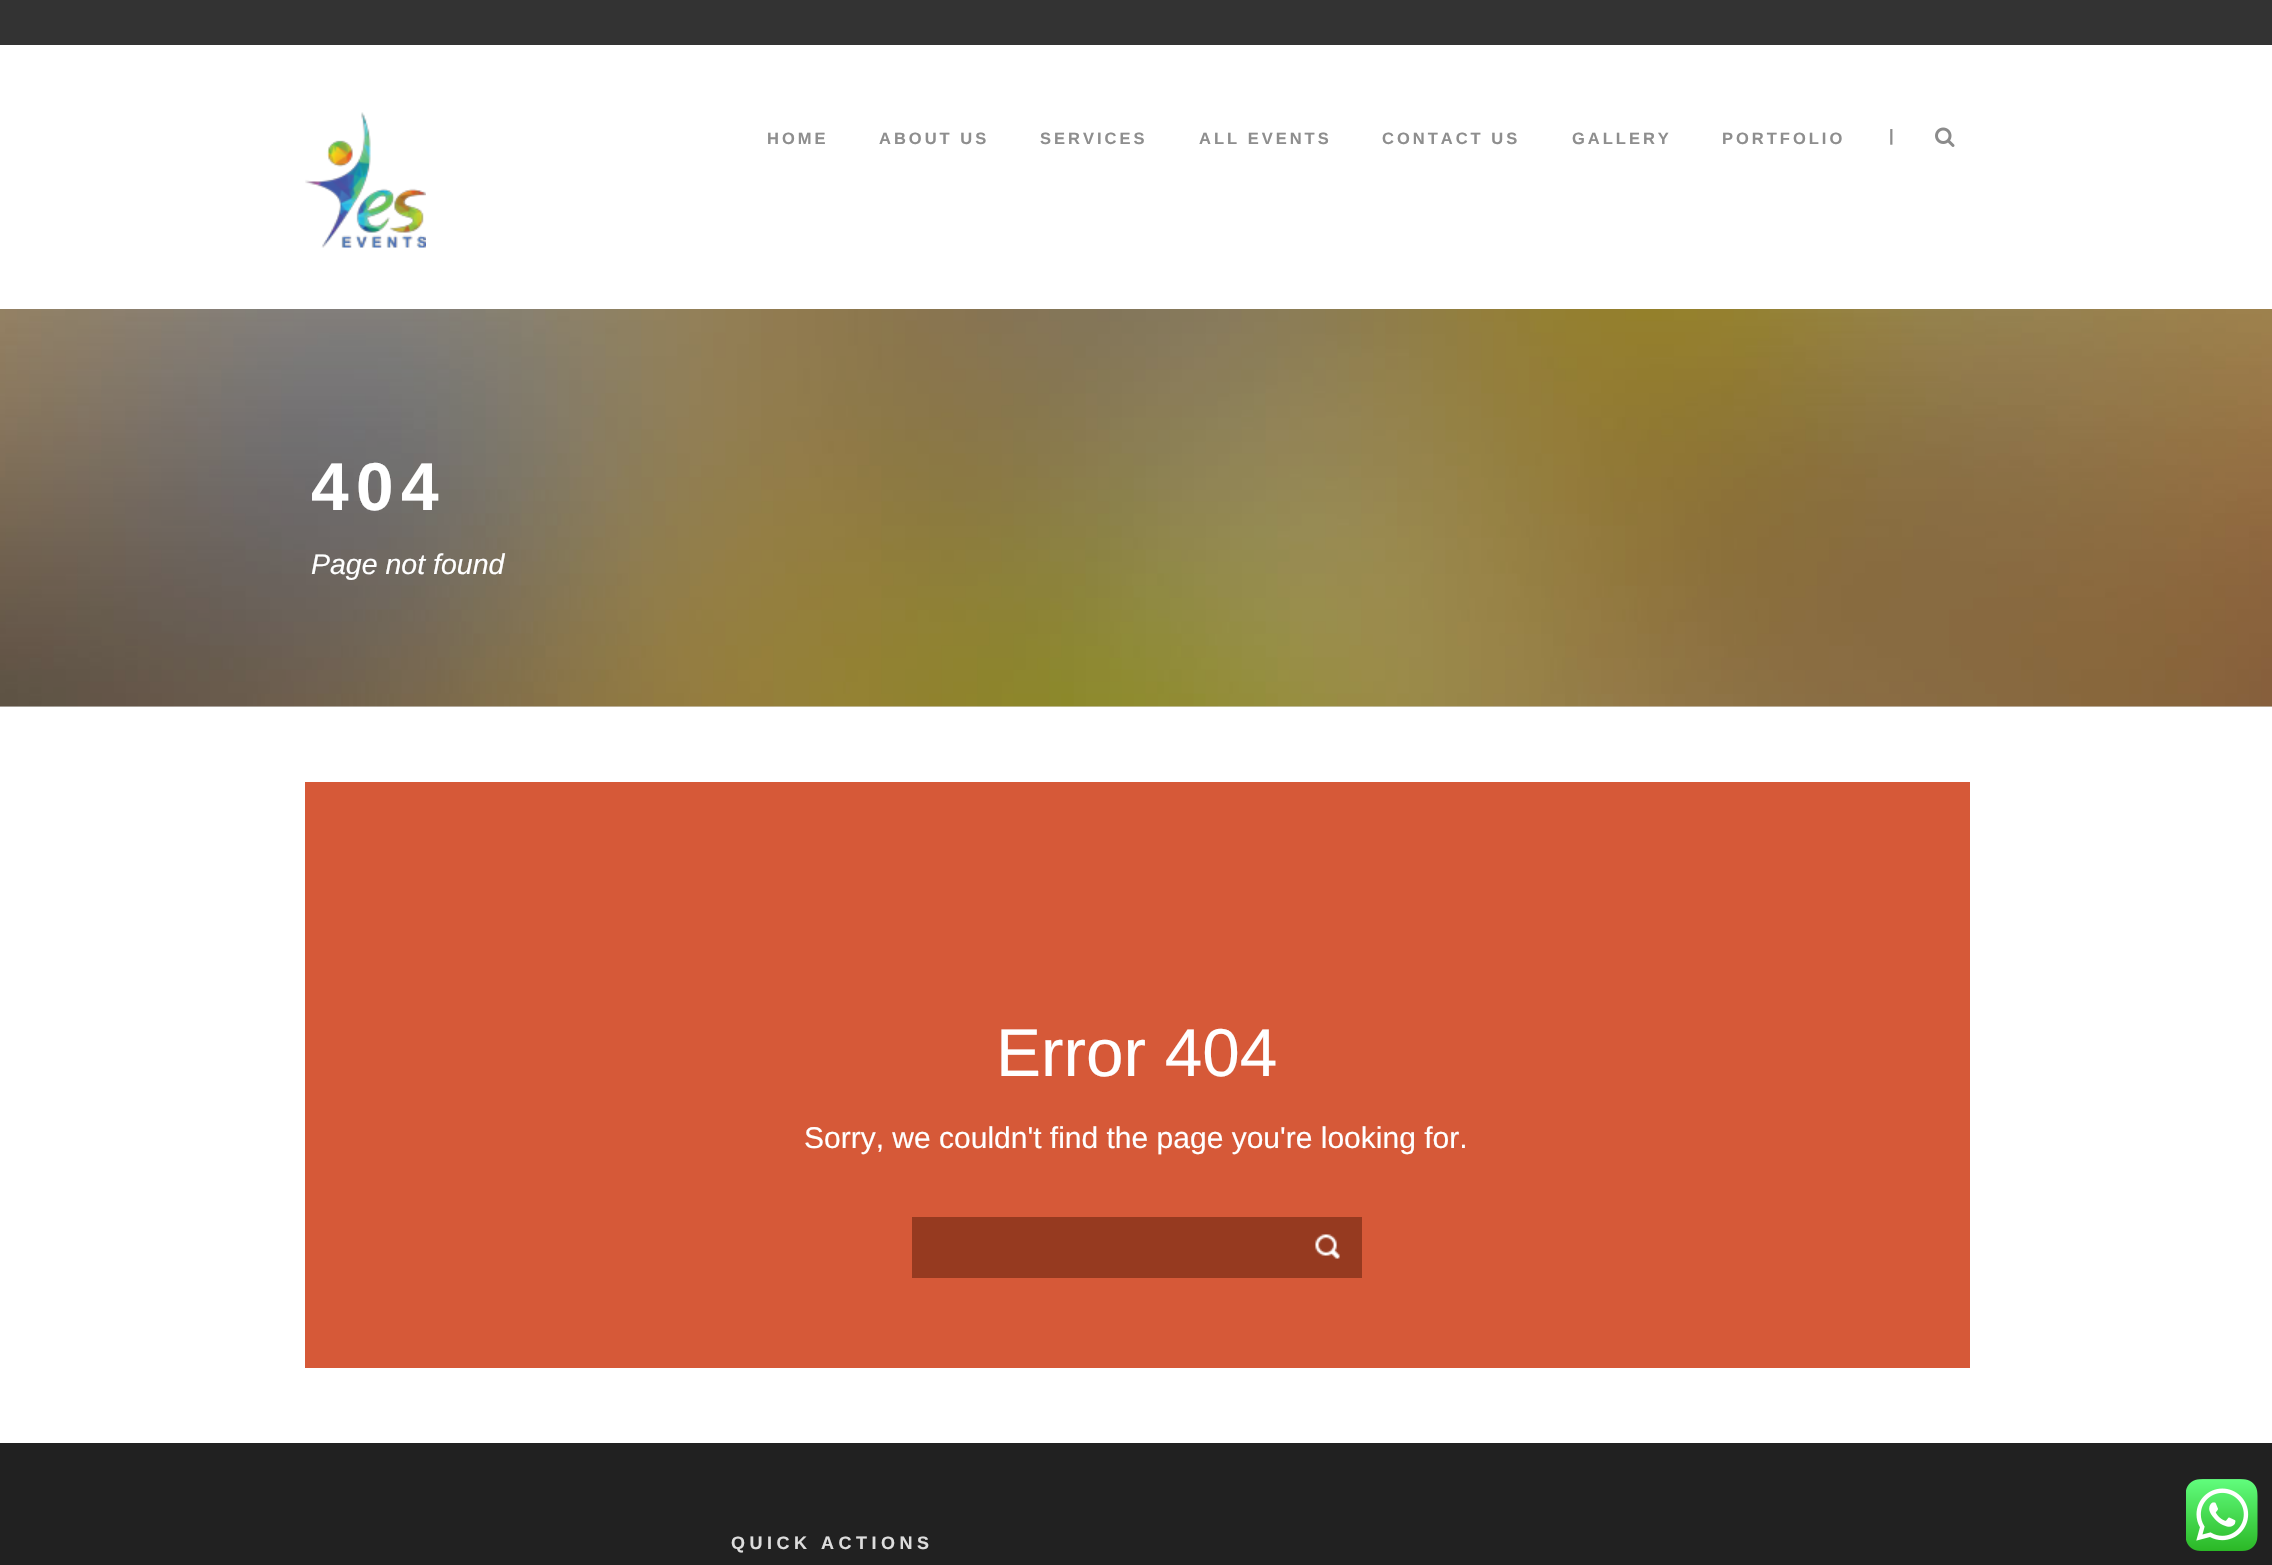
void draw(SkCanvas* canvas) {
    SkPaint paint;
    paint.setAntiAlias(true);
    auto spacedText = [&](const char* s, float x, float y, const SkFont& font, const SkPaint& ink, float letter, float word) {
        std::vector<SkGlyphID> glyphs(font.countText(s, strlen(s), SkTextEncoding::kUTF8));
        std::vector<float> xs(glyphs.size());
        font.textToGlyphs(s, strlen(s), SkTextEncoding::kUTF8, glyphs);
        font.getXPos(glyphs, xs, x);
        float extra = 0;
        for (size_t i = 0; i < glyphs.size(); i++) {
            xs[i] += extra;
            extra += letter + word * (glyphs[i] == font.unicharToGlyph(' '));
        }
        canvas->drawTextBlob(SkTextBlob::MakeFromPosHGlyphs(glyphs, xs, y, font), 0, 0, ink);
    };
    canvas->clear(0xFFFFFFFF);
    paint.setColor(0xFFE6E6E6);
    canvas->drawRect(SkRect::MakeXYWH(0, 706, 2272, 1), paint);
    paint.setColor(0xFF333333);
    canvas->drawRect(SkRect::MakeXYWH(0, 0, 2272, 45), paint);
    canvas->drawImageRect(SkImages::DeferredFromEncodedData(SkData::MakeFromFileName("img1.png")), SkRect::MakeXYWH(305, 112, 121, 136), SkSamplingOptions());
    SkFont font1(fontMgr->matchFamilyStyle("Liberation Sans", SkFontStyle::Bold()), 16.5f);
    font1.setSubpixel(true);
    paint.setColor(0xFF8E8E8E);
    spacedText("HOME", 767, 144, font1, paint, 3, 0);
    spacedText("ABOUT US", 879, 144, font1, paint, 3, 0);
    spacedText("SERVICES", 1040, 144, font1, paint, 3, 0);
    spacedText("ALL EVENTS", 1199, 144, font1, paint, 3, 0);
    spacedText("CONTACT US", 1382, 144, font1, paint, 3, 0);
    spacedText("GALLERY", 1572, 144, font1, paint, 3, 0);
    spacedText("PORTFOLIO", 1722, 144, font1, paint, 3, 0);
    canvas->drawString("|", 1889, 141, font1, paint);
    canvas->drawImageRect(SkImages::DeferredFromEncodedData(SkData::MakeFromFileName("img2.png")), SkRect::MakeXYWH(1935, 127, 20, 20), SkSamplingOptions());
    canvas->drawImageRect(SkImages::DeferredFromEncodedData(SkData::MakeFromFileName("img3.png")), SkRect::MakeXYWH(0, 309, 2272, 398), SkSamplingOptions());
    SkFont font2(fontMgr->matchFamilyStyle("Liberation Sans", SkFontStyle::Bold()), 67.5f);
    font2.setSubpixel(true);
    paint.setColor(0xFFFFFFFF);
    spacedText("404", 311, 510, font2, paint, 7.5f, 0);
    SkFont font3(fontMgr->matchFamilyStyle("Liberation Sans", SkFontStyle::Italic()), 28.5f);
    font3.setSubpixel(true);
    canvas->drawString("Page not found", 311, 574, font3, paint);
    paint.setColor(0xFFD65938);
    canvas->drawRect(SkRect::MakeXYWH(305, 782, 1665, 586), paint);
    SkFont font4(fontMgr->matchFamilyStyle("Liberation Sans", SkFontStyle::Normal()), 67.5f);
    font4.setSubpixel(true);
    paint.setColor(0xFFFFFFFF);
    canvas->drawString("Error 404", 996, 1076, font4, paint);
    SkFont font5(fontMgr->matchFamilyStyle("Liberation Sans", SkFontStyle::Normal()), 30);
    font5.setSubpixel(true);
    canvas->drawString("Sorry, we couldn't find the page you're looking for.", 804, 1148, font5, paint);
    paint.setColor(0xFF963A20);
    canvas->drawRect(SkRect::MakeXYWH(912, 1217, 450, 61), paint);
    canvas->drawImageRect(SkImages::DeferredFromEncodedData(SkData::MakeFromFileName("img4.png")), SkRect::MakeXYWH(1315, 1234, 25, 25), SkSamplingOptions());
    paint.setColor(0xFF212121);
    canvas->drawRect(SkRect::MakeXYWH(0, 1443, 2272, 122), paint);
    SkFont font6(fontMgr->matchFamilyStyle("Liberation Sans", SkFontStyle::Bold()), 18);
    font6.setSubpixel(true);
    paint.setColor(0xFFDDDDDD);
    spacedText("QUICK ACTIONS", 731, 1549, font6, paint, 4.5f, 0);
    canvas->drawImageRect(SkImages::DeferredFromEncodedData(SkData::MakeFromFileName("img5.png")), SkRect::MakeXYWH(2186, 1479, 72, 72), SkSamplingOptions());
}
